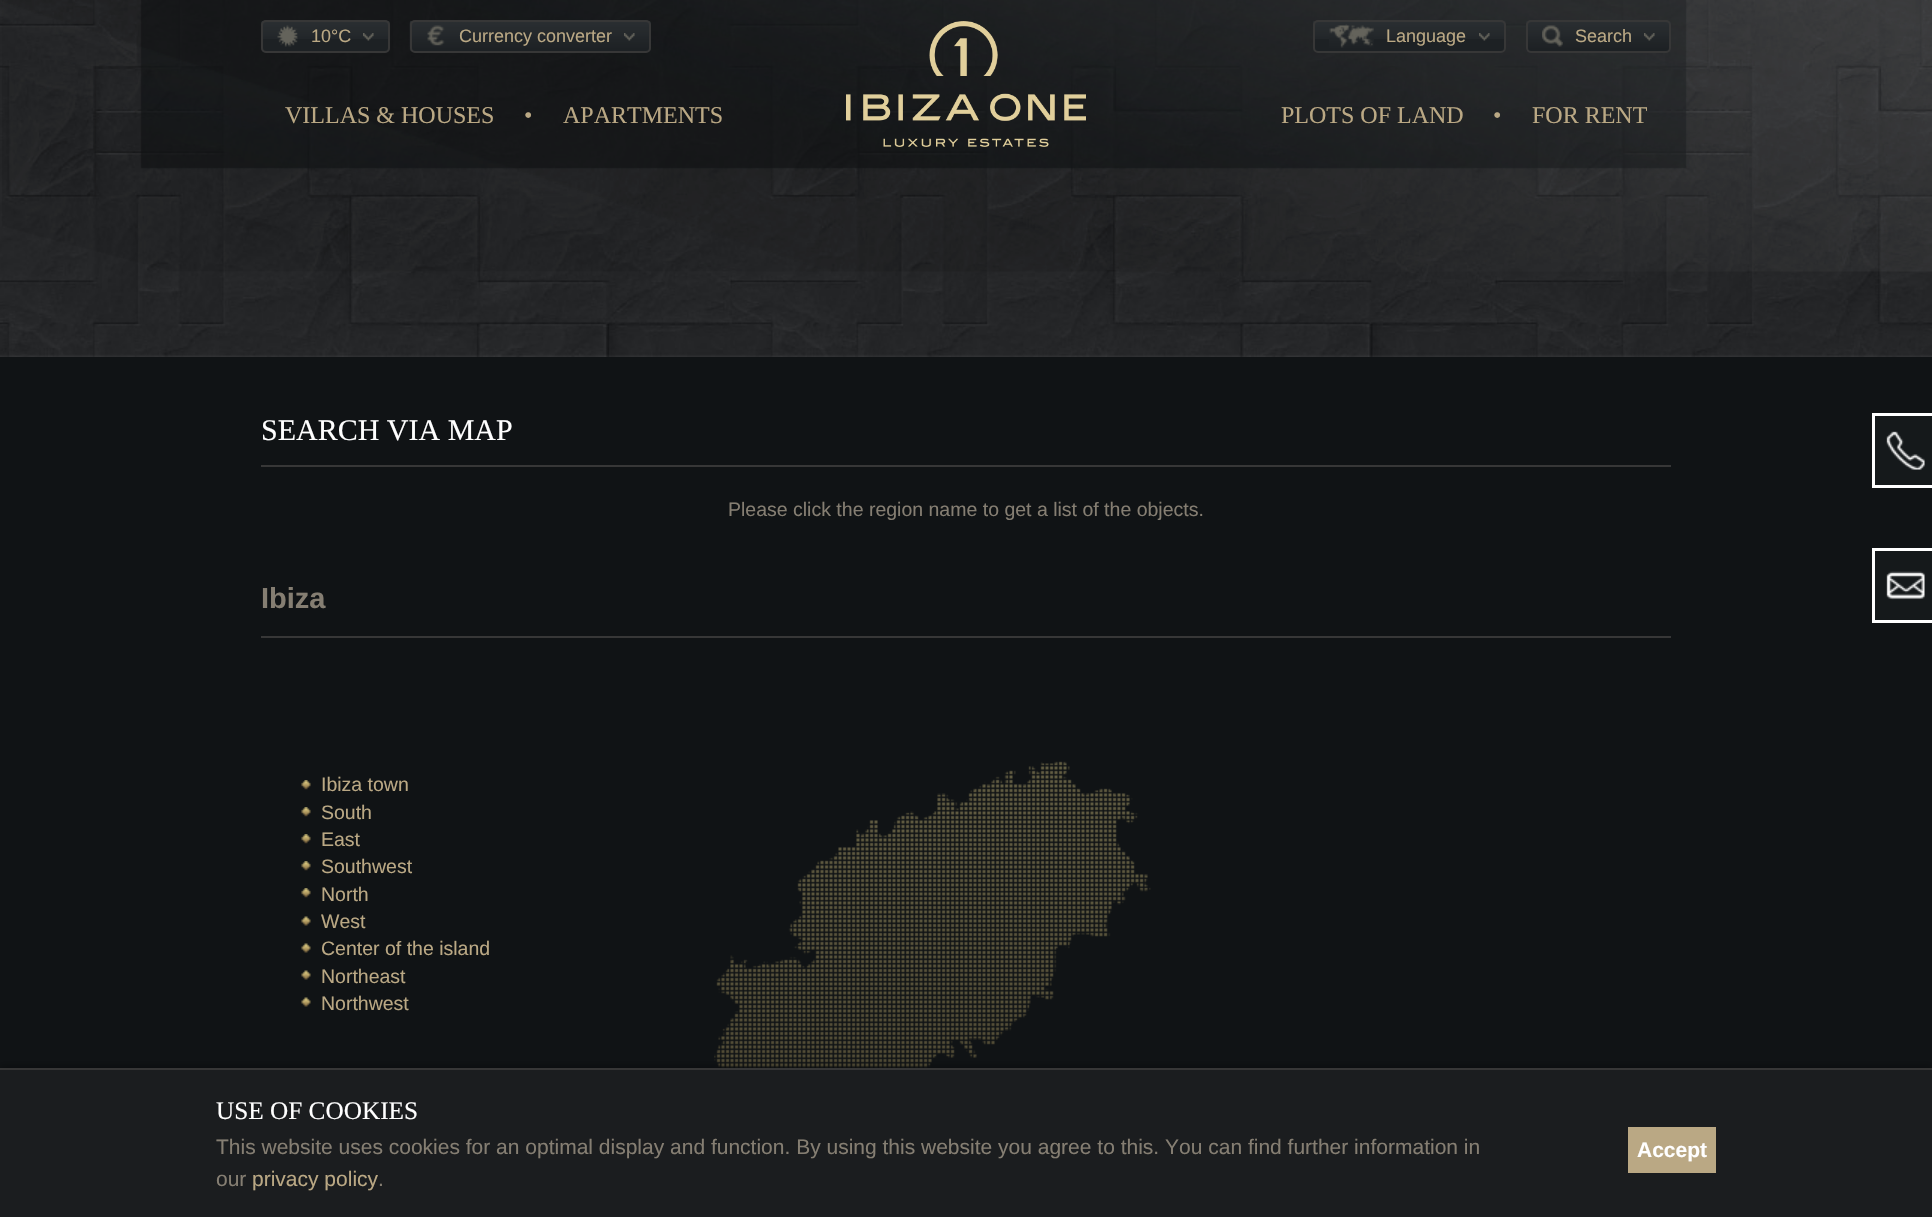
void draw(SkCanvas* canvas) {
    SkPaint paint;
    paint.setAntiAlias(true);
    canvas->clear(0xFF101315);
    canvas->drawImageRect(SkImages::DeferredFromEncodedData(SkData::MakeFromFileName("img1.png")), SkRect::MakeXYWH(0, 0, 1932, 357), SkSamplingOptions());
    canvas->drawImageRect(SkImages::DeferredFromEncodedData(SkData::MakeFromFileName("img2.png")), SkRect::MakeXYWH(2, 0, 1930, 272), SkSamplingOptions());
    paint.setColor(0xFF1D2124);
    canvas->drawRoundRect(SkRect::MakeXYWH(261, 20, 129, 33), 5, 5, paint);
    canvas->drawImageRect(SkImages::DeferredFromEncodedData(SkData::MakeFromFileName("img3.png")), SkRect::MakeXYWH(261, 21, 129, 18), SkSamplingOptions());
    paint.setStyle(SkPaint::kStroke_Style);
    paint.setStrokeWidth(2);
    paint.setColor(0xFF373737);
    canvas->drawRoundRect(SkRect::MakeXYWH(262, 21, 127, 31), 4, 4, paint);
    canvas->drawImageRect(SkImages::DeferredFromEncodedData(SkData::MakeFromFileName("img4.png")), SkRect::MakeXYWH(277, 25, 21, 22), SkSamplingOptions());
    canvas->drawImageRect(SkImages::DeferredFromEncodedData(SkData::MakeFromFileName("img5.png")), SkRect::MakeXYWH(363, 33, 11, 8), SkSamplingOptions());
    SkFont font1(fontMgr->matchFamilyStyle("Liberation Sans", SkFontStyle::Normal()), 18);
    font1.setSubpixel(true);
    paint.setStyle(SkPaint::kFill_Style);
    paint.setColor(0xFFBAA884);
    canvas->drawString("10°C", 311, 42, font1, paint);
    canvas->drawImageRect(SkImages::DeferredFromEncodedData(SkData::MakeFromFileName("img6.png")), SkRect::MakeXYWH(409, 21, 242, 30), SkSamplingOptions());
    paint.setStyle(SkPaint::kStroke_Style);
    paint.setColor(0xFF373737);
    canvas->drawRoundRect(SkRect::MakeXYWH(411, 21, 239, 31), 4, 4, paint);
    canvas->drawImageRect(SkImages::DeferredFromEncodedData(SkData::MakeFromFileName("img7.png")), SkRect::MakeXYWH(427, 25, 18, 21), SkSamplingOptions());
    canvas->drawImageRect(SkImages::DeferredFromEncodedData(SkData::MakeFromFileName("img8.png")), SkRect::MakeXYWH(624, 33, 11, 8), SkSamplingOptions());
    paint.setStyle(SkPaint::kFill_Style);
    paint.setColor(0xFFBAA884);
    canvas->drawString("Currency converter", 459, 42, font1, paint);
    canvas->drawImageRect(SkImages::DeferredFromEncodedData(SkData::MakeFromFileName("img9.png")), SkRect::MakeXYWH(846, 21, 240, 126), SkSamplingOptions());
    paint.setColor(0xFF1D2124);
    canvas->drawRoundRect(SkRect::MakeXYWH(1313, 20, 193, 33), 5, 5, paint);
    canvas->drawImageRect(SkImages::DeferredFromEncodedData(SkData::MakeFromFileName("img10.png")), SkRect::MakeXYWH(1313, 21, 193, 18), SkSamplingOptions());
    paint.setStyle(SkPaint::kStroke_Style);
    paint.setColor(0xFF373737);
    canvas->drawRoundRect(SkRect::MakeXYWH(1314, 21, 191, 31), 4, 4, paint);
    canvas->drawImageRect(SkImages::DeferredFromEncodedData(SkData::MakeFromFileName("img11.png")), SkRect::MakeXYWH(1329, 24, 45, 24), SkSamplingOptions());
    canvas->drawImageRect(SkImages::DeferredFromEncodedData(SkData::MakeFromFileName("img5.png")), SkRect::MakeXYWH(1479, 33, 11, 8), SkSamplingOptions());
    paint.setStyle(SkPaint::kFill_Style);
    paint.setColor(0xFFBAA884);
    canvas->drawString("Language", 1386, 42, font1, paint);
    canvas->drawImageRect(SkImages::DeferredFromEncodedData(SkData::MakeFromFileName("img12.png")), SkRect::MakeXYWH(1526, 21, 145, 30), SkSamplingOptions());
    paint.setStyle(SkPaint::kStroke_Style);
    paint.setColor(0xFF373737);
    canvas->drawRoundRect(SkRect::MakeXYWH(1527, 21, 143, 31), 4, 4, paint);
    canvas->drawImageRect(SkImages::DeferredFromEncodedData(SkData::MakeFromFileName("img13.png")), SkRect::MakeXYWH(1542, 25, 21, 22), SkSamplingOptions());
    canvas->drawImageRect(SkImages::DeferredFromEncodedData(SkData::MakeFromFileName("img8.png")), SkRect::MakeXYWH(1644, 33, 11, 8), SkSamplingOptions());
    paint.setStyle(SkPaint::kFill_Style);
    paint.setColor(0xFFBAA884);
    canvas->drawString("Search", 1575, 42, font1, paint);
    SkFont font2(fontMgr->matchFamilyStyle("Liberation Serif", SkFontStyle::Normal()), 24);
    font2.setSubpixel(true);
    canvas->drawString("VILLAS & HOUSES", 285, 123, font2, paint);
    canvas->drawString("•", 524, 123, font2, paint);
    canvas->drawString("APARTMENTS", 563, 123, font2, paint);
    canvas->drawString("PLOTS OF LAND", 1281, 123, font2, paint);
    canvas->drawString("•", 1493, 123, font2, paint);
    canvas->drawString("FOR RENT", 1532, 123, font2, paint);
    paint.setColor(0xFF15191B);
    canvas->drawRect(SkRect::MakeXYWH(1875, 416, 57, 69), paint);
    paint.setColor(0xFFFFFFFF);
    canvas->drawRect(SkRect::MakeXYWH(1872, 413, 60, 3), paint);
    canvas->drawRect(SkRect::MakeXYWH(1872, 485, 60, 3), paint);
    canvas->drawRect(SkRect::MakeXYWH(1872, 413, 3, 75), paint);
    canvas->drawImageRect(SkImages::DeferredFromEncodedData(SkData::MakeFromFileName("img14.png")), SkRect::MakeXYWH(1886, 431, 39, 39), SkSamplingOptions());
    paint.setColor(0xFF15191B);
    canvas->drawRect(SkRect::MakeXYWH(1875, 551, 57, 69), paint);
    paint.setColor(0xFFFFFFFF);
    canvas->drawRect(SkRect::MakeXYWH(1872, 548, 60, 3), paint);
    canvas->drawRect(SkRect::MakeXYWH(1872, 620, 60, 3), paint);
    canvas->drawRect(SkRect::MakeXYWH(1872, 548, 3, 75), paint);
    canvas->drawImageRect(SkImages::DeferredFromEncodedData(SkData::MakeFromFileName("img15.png")), SkRect::MakeXYWH(1886, 571, 39, 29), SkSamplingOptions());
    paint.setColor(0xFF373737);
    canvas->drawRect(SkRect::MakeXYWH(261, 465, 1410, 2), paint);
    SkFont font3(fontMgr->matchFamilyStyle("Liberation Serif", SkFontStyle::Normal()), 30);
    font3.setSubpixel(true);
    paint.setColor(0xFFFFFFFF);
    canvas->drawString("SEARCH VIA MAP", 261, 440, font3, paint);
    SkFont font4(fontMgr->matchFamilyStyle("Liberation Sans", SkFontStyle::Normal()), 19.5f);
    font4.setSubpixel(true);
    paint.setColor(0xFF857E72);
    canvas->drawString("Please click the region name to get a list of the objects.", 728, 516, font4, paint);
    SkFont font5(fontMgr->matchFamilyStyle("Liberation Sans", SkFontStyle::Bold()), 29);
    font5.setSubpixel(true);
    canvas->drawString("Ibiza", 261, 608, font5, paint);
    paint.setColor(0xFF373737);
    canvas->drawRect(SkRect::MakeXYWH(261, 636, 1410, 2), paint);
    canvas->drawImageRect(SkImages::DeferredFromEncodedData(SkData::MakeFromFileName("img16.png")), SkRect::MakeXYWH(301, 780, 10, 10), SkSamplingOptions());
    paint.setColor(0xFFBAA884);
    canvas->drawString("Ibiza town", 321, 791, font4, paint);
    canvas->drawImageRect(SkImages::DeferredFromEncodedData(SkData::MakeFromFileName("img16.png")), SkRect::MakeXYWH(301, 807, 10, 10), SkSamplingOptions());
    canvas->drawString("South", 321, 819, font4, paint);
    canvas->drawImageRect(SkImages::DeferredFromEncodedData(SkData::MakeFromFileName("img16.png")), SkRect::MakeXYWH(301, 834, 10, 10), SkSamplingOptions());
    canvas->drawString("East", 321, 846, font4, paint);
    canvas->drawImageRect(SkImages::DeferredFromEncodedData(SkData::MakeFromFileName("img16.png")), SkRect::MakeXYWH(301, 861, 10, 10), SkSamplingOptions());
    canvas->drawString("Southwest", 321, 873, font4, paint);
    canvas->drawImageRect(SkImages::DeferredFromEncodedData(SkData::MakeFromFileName("img16.png")), SkRect::MakeXYWH(301, 888, 10, 10), SkSamplingOptions());
    canvas->drawString("North", 321, 901, font4, paint);
    canvas->drawImageRect(SkImages::DeferredFromEncodedData(SkData::MakeFromFileName("img17.png")), SkRect::MakeXYWH(301, 916, 10, 10), SkSamplingOptions());
    canvas->drawString("West", 321, 928, font4, paint);
    canvas->drawImageRect(SkImages::DeferredFromEncodedData(SkData::MakeFromFileName("img17.png")), SkRect::MakeXYWH(301, 943, 10, 10), SkSamplingOptions());
    canvas->drawString("Center of the island", 321, 955, font4, paint);
    canvas->drawImageRect(SkImages::DeferredFromEncodedData(SkData::MakeFromFileName("img17.png")), SkRect::MakeXYWH(301, 970, 10, 10), SkSamplingOptions());
    canvas->drawString("Northeast", 321, 983, font4, paint);
    canvas->drawImageRect(SkImages::DeferredFromEncodedData(SkData::MakeFromFileName("img17.png")), SkRect::MakeXYWH(301, 997, 10, 10), SkSamplingOptions());
    canvas->drawString("Northwest", 321, 1010, font4, paint);
    canvas->drawImageRect(SkImages::DeferredFromEncodedData(SkData::MakeFromFileName("img18.png")), SkRect::MakeXYWH(714, 761, 437, 307), SkSamplingOptions());
    paint.setColor(0x3B000000);
    paint.setMaskFilter(SkMaskFilter::MakeBlur(kNormal_SkBlurStyle, 3));
    canvas->drawRect(SkRect::MakeXYWH(0, 1065, 1932, 150), paint);
    paint.setMaskFilter(nullptr);
    paint.setColor(0xFF1B1D1F);
    canvas->drawRect(SkRect::MakeXYWH(0, 1070, 1932, 147), paint);
    paint.setColor(0xFF373737);
    canvas->drawRect(SkRect::MakeXYWH(0, 1068, 1932, 2), paint);
    SkFont font6(fontMgr->matchFamilyStyle("Liberation Serif", SkFontStyle::Normal()), 25.25f);
    font6.setSubpixel(true);
    paint.setColor(0xFFFFFFFF);
    canvas->drawString("USE OF COOKIES", 216, 1119, font6, paint);
    SkFont font7(fontMgr->matchFamilyStyle("Liberation Sans", SkFontStyle::Normal()), 21);
    font7.setSubpixel(true);
    paint.setColor(0xFF857E72);
    canvas->drawString("This website uses cookies for an optimal display and function. By using this website you agree to this. You can find further information in", 216, 1154, font7, paint);
    canvas->drawString("our", 216, 1186, font7, paint);
    paint.setColor(0xFFBAA884);
    canvas->drawString("privacy policy", 252, 1186, font7, paint);
    paint.setColor(0xFF857E72);
    canvas->drawString(".", 378, 1186, font7, paint);
    paint.setColor(0xFFBAA884);
    canvas->drawRect(SkRect::MakeXYWH(1628, 1127, 88, 46), paint);
    SkFont font8(fontMgr->matchFamilyStyle("Liberation Sans", SkFontStyle::Bold()), 21);
    font8.setSubpixel(true);
    paint.setColor(0xFFFFFFFF);
    canvas->drawString("Accept", 1637, 1157, font8, paint);
}
